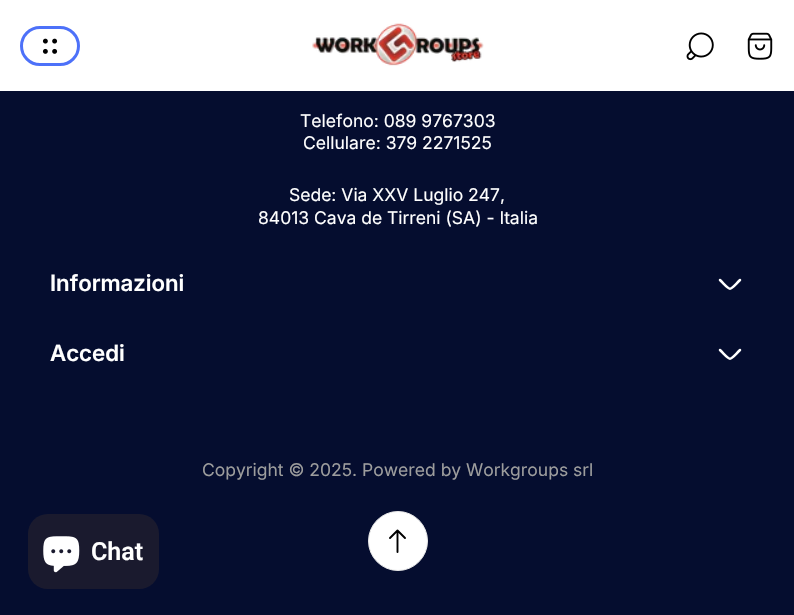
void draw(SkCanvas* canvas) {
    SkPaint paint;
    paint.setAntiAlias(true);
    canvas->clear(0xFF050D2F);
    paint.setColor(0xFFFFFFFF);
    canvas->drawRect(SkRect::MakeXYWH(0, 0, 794, 91), paint);
    paint.setStyle(SkPaint::kStroke_Style);
    paint.setStrokeWidth(3);
    paint.setColor(0xFF4D71F9);
    canvas->drawRoundRect(SkRect::MakeXYWH(21.5f, 27.5f, 57, 37), 18.5f, 18.5f, paint);
    canvas->drawImageRect(SkImages::DeferredFromEncodedData(SkData::MakeFromFileName("img1.png")), SkRect::MakeXYWH(42, 38, 16, 16), SkSamplingOptions());
    canvas->drawImageRect(SkImages::DeferredFromEncodedData(SkData::MakeFromFileName("img2.png")), SkRect::MakeXYWH(312, 23, 172, 43), SkSamplingOptions());
    canvas->drawImageRect(SkImages::DeferredFromEncodedData(SkData::MakeFromFileName("img3.png")), SkRect::MakeXYWH(686, 32, 28, 29), SkSamplingOptions());
    canvas->drawImageRect(SkImages::DeferredFromEncodedData(SkData::MakeFromFileName("img4.png")), SkRect::MakeXYWH(747, 32, 26, 28), SkSamplingOptions());
    SkFont font1(fontMgr->matchFamilyStyle("Inter", SkFontStyle::Normal()), 17.5f);
    font1.setSubpixel(true);
    paint.setStyle(SkPaint::kFill_Style);
    paint.setColor(0xFFFFFFFF);
    canvas->drawString("Telefono: 089 9767303", 300, 127, font1, paint);
    canvas->drawString("Cellulare: 379 2271525", 303, 149, font1, paint);
    canvas->drawString("Sede: Via XXV Luglio 247,", 289, 201, font1, paint);
    canvas->drawString("84013 Cava de Tirreni (SA) - Italia", 258, 224, font1, paint);
    SkFont font2(fontMgr->matchFamilyStyle("Inter", SkFontStyle(600, SkFontStyle::kNormal_Width, SkFontStyle::kUpright_Slant)), 22.5f);
    font2.setSubpixel(true);
    canvas->drawString("Informazioni", 50, 291, font2, paint);
    paint.setStyle(SkPaint::kStroke_Style);
    paint.setStrokeWidth(2.5f);
    paint.setStrokeCap(SkPaint::kRound_Cap);
    paint.setStrokeJoin(SkPaint::kRound_Join);
    canvas->drawPath(SkPathBuilder().moveTo(740, 280).cubicTo(728.5f, 291.5f, 731.5f, 291.5f, 720, 280).detach(), paint);
    paint.setStyle(SkPaint::kFill_Style);
    canvas->drawString("Accedi", 50, 361, font2, paint);
    paint.setStyle(SkPaint::kStroke_Style);
    canvas->drawPath(SkPathBuilder().moveTo(740, 350).cubicTo(728.5f, 361.5f, 731.5f, 361.5f, 720, 350).detach(), paint);
    paint.setStyle(SkPaint::kFill_Style);
    paint.setColor(0xFF9D9D9D);
    canvas->drawString("Copyright © 2025. Powered by Workgroups srl", 202, 476, font1, paint);
    paint.setColor(0xFFFFFFFF);
    canvas->drawCircle(398, 541, 29.5f, paint);
    paint.setStyle(SkPaint::kStroke_Style);
    paint.setStrokeWidth(1);
    paint.setStrokeCap(SkPaint::kButt_Cap);
    paint.setStrokeJoin(SkPaint::kMiter_Join);
    paint.setColor(0xFFE9E9E9);
    canvas->drawCircle(398, 541, 29.5f, paint);
    paint.setStrokeWidth(1.9f);
    paint.setStrokeCap(SkPaint::kRound_Cap);
    paint.setStrokeJoin(SkPaint::kRound_Join);
    paint.setColor(0xFF000000);
    canvas->drawPath(SkPathBuilder().moveTo(405, 538).lineTo(397.5f, 530.5f).lineTo(390, 538).moveTo(397.5f, 552).lineTo(397.5f, 531).detach(), paint);
    paint.setStyle(SkPaint::kFill_Style);
    paint.setColor(0xFF1A1A2E);
    canvas->drawRoundRect(SkRect::MakeXYWH(28, 514, 131, 75), 20, 20, paint);
    canvas->drawImageRect(SkImages::DeferredFromEncodedData(SkData::MakeFromFileName("img5.png")), SkRect::MakeXYWH(43, 536, 37, 37), SkSamplingOptions());
    SkFont font3(fontMgr->matchFamilyStyle("Roboto", SkFontStyle(600, SkFontStyle::kNormal_Width, SkFontStyle::kUpright_Slant)), 25);
    font3.setSubpixel(true);
    paint.setColor(0xFFFFFFFF);
    canvas->drawString("Chat", 91, 560, font3, paint);
}
